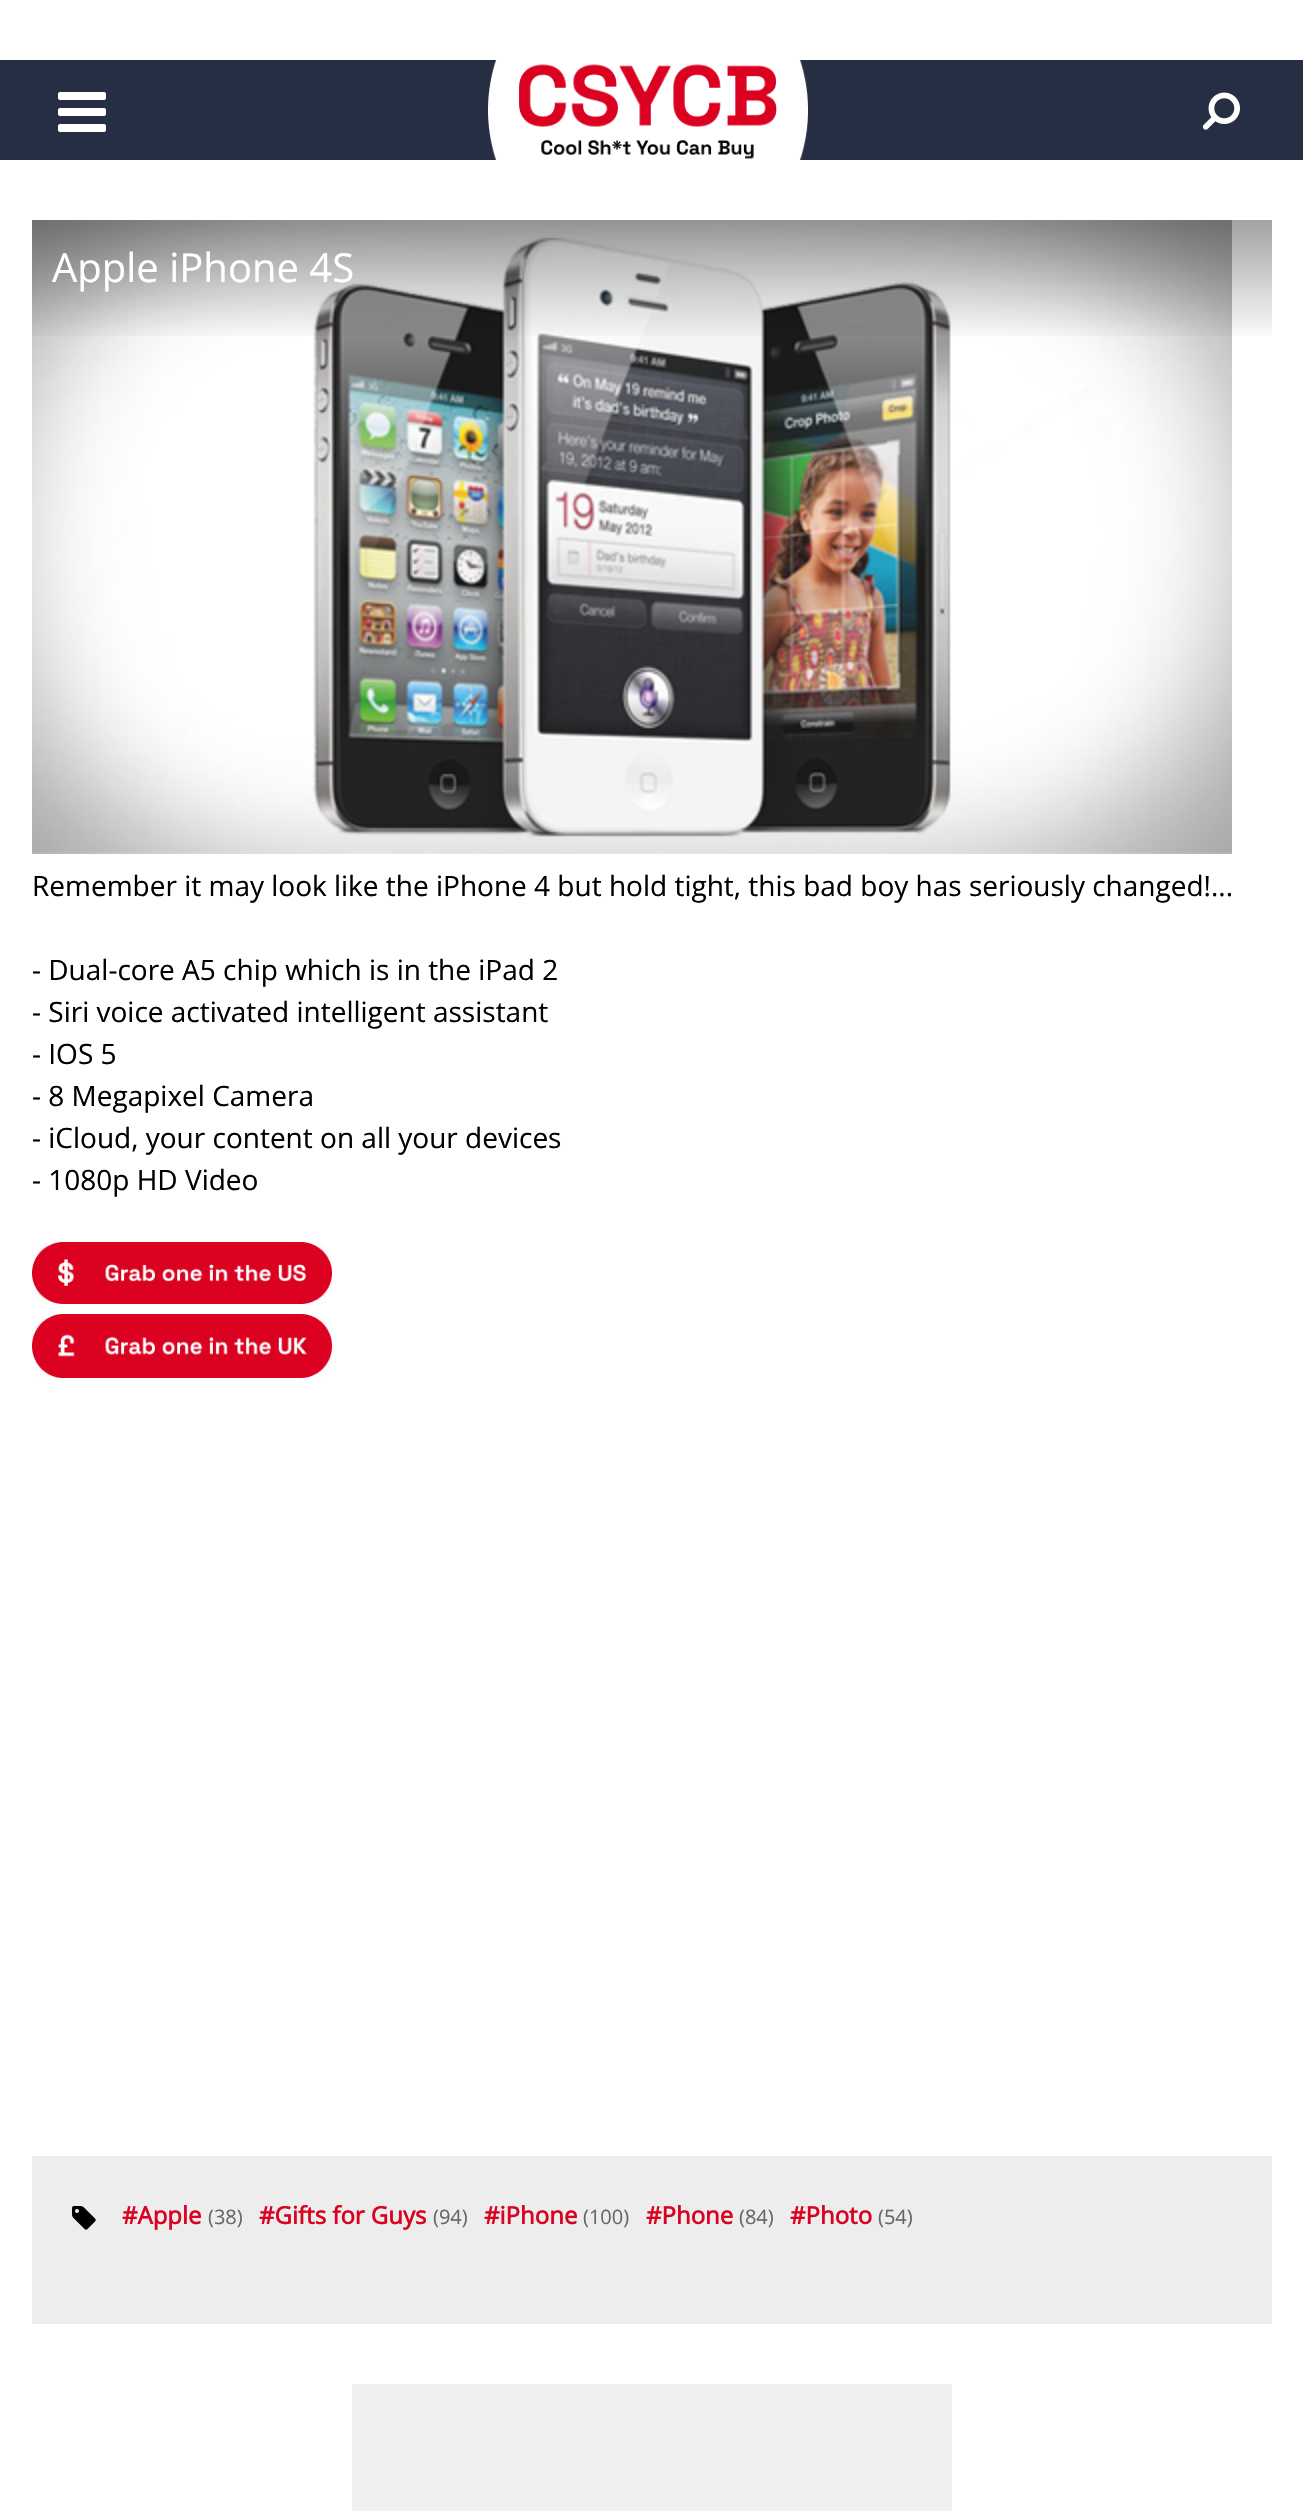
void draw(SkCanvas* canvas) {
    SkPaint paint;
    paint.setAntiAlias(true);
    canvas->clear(0xFFFFFFFF);
    paint.setColor(0xFF252E43);
    canvas->drawRect(SkRect::MakeXYWH(0, 60, 1303, 100), paint);
    canvas->drawImageRect(SkImages::DeferredFromEncodedData(SkData::MakeFromFileName("img1.png")), SkRect::MakeXYWH(58, 92, 48, 40), SkSamplingOptions());
    canvas->drawImageRect(SkImages::DeferredFromEncodedData(SkData::MakeFromFileName("img2.png")), SkRect::MakeXYWH(1202, 92, 38, 38), SkSamplingOptions());
    canvas->drawImageRect(SkImages::DeferredFromEncodedData(SkData::MakeFromFileName("img3.png")), SkRect::MakeXYWH(488, 60, 320, 100), SkSamplingOptions());
    canvas->drawImageRect(SkImages::DeferredFromEncodedData(SkData::MakeFromFileName("img5.png")), SkRect::MakeXYWH(32, 220, 1200, 634), SkSamplingOptions());
    canvas->drawImageRect(SkImages::DeferredFromEncodedData(SkData::MakeFromFileName("img4.png")), SkRect::MakeXYWH(32, 220, 1240, 116), SkSamplingOptions());
    SkFont font1(fontMgr->matchFamilyStyle("Open Sans", SkFontStyle::Normal()), 40);
    font1.setSubpixel(true);
    paint.setColor(0xFFFFFFFF);
    canvas->drawString("Apple iPhone 4S", 52, 282, font1, paint);
    SkFont font2(fontMgr->matchFamilyStyle("Open Sans", SkFontStyle::Normal()), 28);
    font2.setSubpixel(true);
    paint.setColor(0xFF000000);
    canvas->drawString("Remember it may look like the iPhone 4 but hold tight, this bad boy has seriously changed!...", 32, 896, font2, paint);
    canvas->drawString("- Dual-core A5 chip which is in the iPad 2", 32, 980, font2, paint);
    canvas->drawString("- Siri voice activated intelligent assistant", 32, 1022, font2, paint);
    canvas->drawString("- IOS 5", 32, 1064, font2, paint);
    canvas->drawString("- 8 Megapixel Camera", 32, 1106, font2, paint);
    canvas->drawString("- iCloud, your content on all your devices", 32, 1148, font2, paint);
    canvas->drawString("- 1080p HD Video", 32, 1190, font2, paint);
    canvas->drawImageRect(SkImages::DeferredFromEncodedData(SkData::MakeFromFileName("img6.png")), SkRect::MakeXYWH(32, 1242, 300, 62), SkSamplingOptions());
    canvas->drawImageRect(SkImages::DeferredFromEncodedData(SkData::MakeFromFileName("img7.png")), SkRect::MakeXYWH(32, 1314, 300, 64), SkSamplingOptions());
    paint.setColor(0xFFEDEDED);
    canvas->drawRect(SkRect::MakeXYWH(32, 2156, 1240, 168), paint);
    canvas->drawImageRect(SkImages::DeferredFromEncodedData(SkData::MakeFromFileName("img8.png")), SkRect::MakeXYWH(72, 2206, 24, 24), SkSamplingOptions());
    SkFont font3(fontMgr->matchFamilyStyle("Open Sans", SkFontStyle::Bold()), 24);
    font3.setSubpixel(true);
    paint.setColor(0xFFDB0120);
    canvas->drawString("#Apple", 122, 2224, font3, paint);
    SkFont font4(fontMgr->matchFamilyStyle("Open Sans", SkFontStyle::Normal()), 20);
    font4.setSubpixel(true);
    paint.setColor(0xFF666666);
    canvas->drawString("(38)", 208, 2224, font4, paint);
    paint.setColor(0xFFDB0120);
    canvas->drawString("#Gifts for Guys", 259, 2224, font3, paint);
    paint.setColor(0xFF666666);
    canvas->drawString("(94)", 433, 2224, font4, paint);
    paint.setColor(0xFFDB0120);
    canvas->drawString("#iPhone", 484, 2224, font3, paint);
    paint.setColor(0xFF666666);
    canvas->drawString("(100)", 583, 2224, font4, paint);
    paint.setColor(0xFFDB0120);
    canvas->drawString("#Phone", 646, 2224, font3, paint);
    paint.setColor(0xFF666666);
    canvas->drawString("(84)", 739, 2224, font4, paint);
    paint.setColor(0xFFDB0120);
    canvas->drawString("#Photo", 790, 2224, font3, paint);
    paint.setColor(0xFF666666);
    canvas->drawString("(54)", 878, 2224, font4, paint);
    paint.setColor(0xFFF0F0F0);
    canvas->drawRect(SkRect::MakeXYWH(352, 2384, 600, 127), paint);
}
